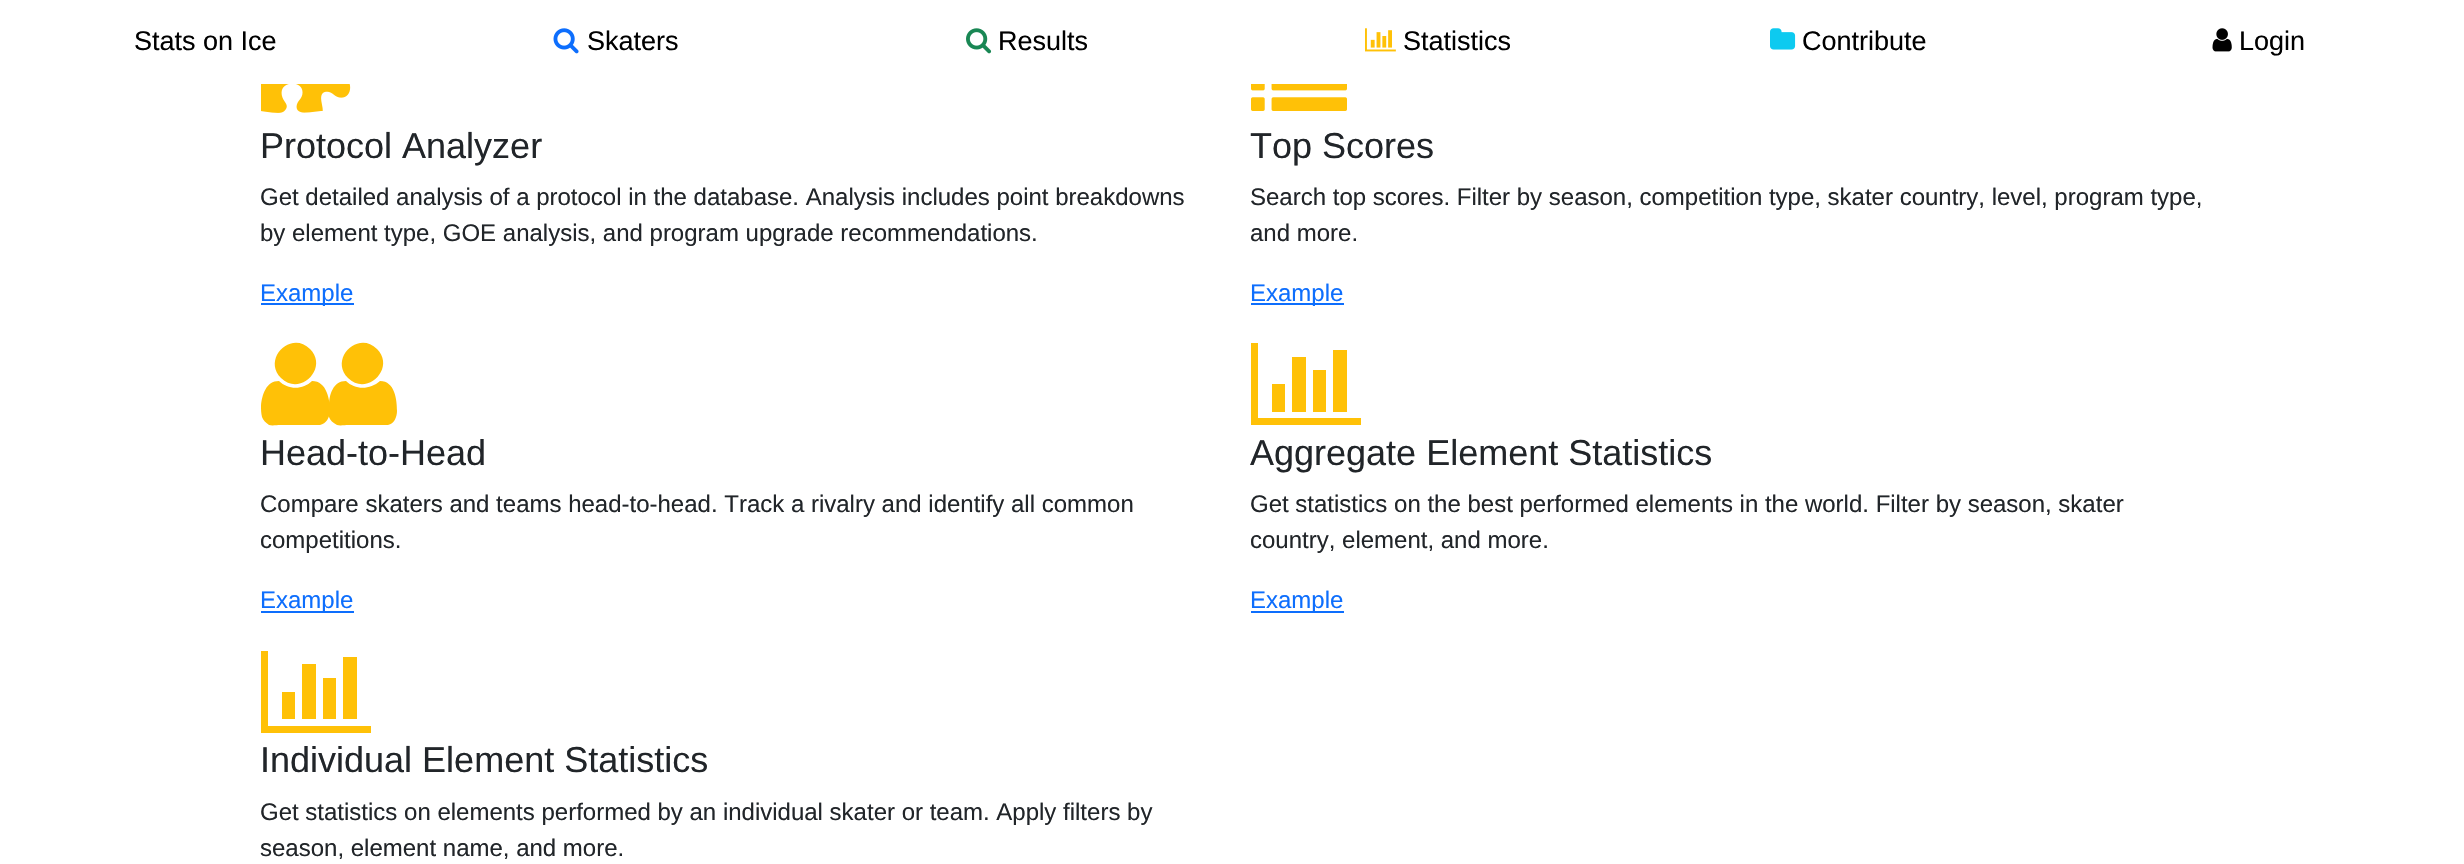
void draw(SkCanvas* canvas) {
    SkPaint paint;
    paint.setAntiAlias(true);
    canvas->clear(0xFFFFFFFF);
    SkFont font1(fontMgr->matchFamilyStyle("Liberation Sans", SkFontStyle::Normal()), 27);
    font1.setSubpixel(true);
    paint.setColor(0xFF000000);
    canvas->drawString("Stats on Ice", 134, 50, font1, paint);
    canvas->drawImageRect(SkImages::DeferredFromEncodedData(SkData::MakeFromFileName("img1.png")), SkRect::MakeXYWH(553, 28, 26, 26), SkSamplingOptions());
    canvas->drawString("Skaters", 587, 50, font1, paint);
    canvas->drawImageRect(SkImages::DeferredFromEncodedData(SkData::MakeFromFileName("img2.png")), SkRect::MakeXYWH(966, 28, 26, 26), SkSamplingOptions());
    canvas->drawString("Results", 998, 50, font1, paint);
    canvas->drawImageRect(SkImages::DeferredFromEncodedData(SkData::MakeFromFileName("img3.png")), SkRect::MakeXYWH(1365, 28, 31, 24), SkSamplingOptions());
    canvas->drawString("Statistics", 1403, 50, font1, paint);
    canvas->drawImageRect(SkImages::DeferredFromEncodedData(SkData::MakeFromFileName("img4.png")), SkRect::MakeXYWH(1770, 28, 26, 22), SkSamplingOptions());
    canvas->drawString("Contribute", 1802, 50, font1, paint);
    canvas->drawImageRect(SkImages::DeferredFromEncodedData(SkData::MakeFromFileName("img5.png")), SkRect::MakeXYWH(2212, 28, 20, 24), SkSamplingOptions());
    canvas->drawString("Login", 2239, 50, font1, paint);
    canvas->drawImageRect(SkImages::DeferredFromEncodedData(SkData::MakeFromFileName("img6.png")), SkRect::MakeXYWH(261, 84, 90, 29), SkSamplingOptions());
    SkFont font2(fontMgr->matchFamilyStyle("Liberation Sans", SkFontStyle::Normal()), 36);
    font2.setSubpixel(true);
    paint.setColor(0xFF212529);
    canvas->drawString("Protocol Analyzer", 260, 158, font2, paint);
    SkFont font3(fontMgr->matchFamilyStyle("Liberation Sans", SkFontStyle::Normal()), 24);
    font3.setSubpixel(true);
    canvas->drawString("Get detailed analysis of a protocol in the database. Analysis includes point breakdowns", 260, 205, font3, paint);
    canvas->drawString("by element type, GOE analysis, and program upgrade recommendations.", 260, 241, font3, paint);
    paint.setColor(0xFF0D6EFD);
    canvas->drawRect(SkRect::MakeXYWH(261, 303, 93, 2), paint);
    canvas->drawString("Example", 260, 301, font3, paint);
    canvas->drawImageRect(SkImages::DeferredFromEncodedData(SkData::MakeFromFileName("img7.png")), SkRect::MakeXYWH(1251, 84, 96, 27), SkSamplingOptions());
    paint.setColor(0xFF212529);
    canvas->drawString("Top Scores", 1250, 158, font2, paint);
    canvas->drawString("Search top scores. Filter by season, competition type, skater country, level, program type,", 1250, 205, font3, paint);
    canvas->drawString("and more.", 1250, 241, font3, paint);
    paint.setColor(0xFF0D6EFD);
    canvas->drawRect(SkRect::MakeXYWH(1251, 303, 93, 2), paint);
    canvas->drawString("Example", 1250, 301, font3, paint);
    paint.setColor(0xFFFFC107);
    canvas->drawPath(SkPathBuilder().moveTo(330, 411).cubicTo(330, 417, 326, 424, 320, 425).lineTo(280, 425).cubicTo(277, 425, 272, 426, 269, 425).cubicTo(266, 423, 263, 420, 262, 417).cubicTo(261, 413, 261, 409, 261, 406).cubicTo(262, 395, 266, 381, 279, 381).cubicTo(288, 390, 303, 390, 312, 381).cubicTo(327, 381, 330, 400, 330, 411).close().moveTo(310, 349).cubicTo(329, 368, 300, 397, 281, 378).cubicTo(262, 359, 291, 330, 310, 349).close().detach(), paint);
    canvas->drawPath(SkPathBuilder().moveTo(397, 411).cubicTo(397, 417, 394, 424, 388, 425).lineTo(348, 425).cubicTo(345, 425, 340, 426, 337, 425).cubicTo(333, 423, 330, 420, 329, 417).cubicTo(328, 413, 328, 409, 329, 406).cubicTo(329, 395, 333, 381, 346, 381).cubicTo(355, 390, 370, 390, 380, 381).cubicTo(395, 381, 397, 400, 397, 411).close().moveTo(377, 349).cubicTo(396, 368, 367, 397, 348, 378).cubicTo(329, 359, 358, 330, 377, 349).close().detach(), paint);
    paint.setColor(0xFF212529);
    canvas->drawString("Head-to-Head", 260, 465, font2, paint);
    canvas->drawString("Compare skaters and teams head-to-head. Track a rivalry and identify all common", 260, 512, font3, paint);
    canvas->drawString("competitions.", 260, 548, font3, paint);
    paint.setColor(0xFF0D6EFD);
    canvas->drawRect(SkRect::MakeXYWH(261, 611, 93, 2), paint);
    canvas->drawString("Example", 260, 608, font3, paint);
    paint.setColor(0xFFFFC107);
    canvas->drawPath(SkPathBuilder().moveTo(1285, 384).lineTo(1285, 412).lineTo(1272, 412).lineTo(1272, 384).close().moveTo(1306, 357).lineTo(1306, 412).lineTo(1292, 412).lineTo(1292, 357).close().moveTo(1361, 418).lineTo(1361, 425).lineTo(1251, 425).lineTo(1251, 343).lineTo(1258, 343).lineTo(1258, 418).close().moveTo(1326, 370).lineTo(1326, 412).lineTo(1313, 412).lineTo(1313, 370).close().moveTo(1347, 350).lineTo(1347, 412).lineTo(1333, 412).lineTo(1333, 350).close().detach(), paint);
    paint.setColor(0xFF212529);
    canvas->drawString("Aggregate Element Statistics", 1250, 465, font2, paint);
    canvas->drawString("Get statistics on the best performed elements in the world. Filter by season, skater", 1250, 512, font3, paint);
    canvas->drawString("country, element, and more.", 1250, 548, font3, paint);
    paint.setColor(0xFF0D6EFD);
    canvas->drawRect(SkRect::MakeXYWH(1251, 611, 93, 2), paint);
    canvas->drawString("Example", 1250, 608, font3, paint);
    paint.setColor(0xFFFFC107);
    canvas->drawPath(SkPathBuilder().moveTo(295, 692).lineTo(295, 719).lineTo(282, 719).lineTo(282, 692).close().moveTo(316, 664).lineTo(316, 719).lineTo(302, 719).lineTo(302, 664).close().moveTo(371, 726).lineTo(371, 733).lineTo(261, 733).lineTo(261, 651).lineTo(268, 651).lineTo(268, 726).close().moveTo(336, 678).lineTo(336, 719).lineTo(323, 719).lineTo(323, 678).close().moveTo(357, 657).lineTo(357, 719).lineTo(343, 719).lineTo(343, 657).close().detach(), paint);
    paint.setColor(0xFF212529);
    canvas->drawString("Individual Element Statistics", 260, 772, font2, paint);
    canvas->drawString("Get statistics on elements performed by an individual skater or team. Apply filters by", 260, 820, font3, paint);
    canvas->drawString("season, element name, and more.", 260, 856, font3, paint);
}
